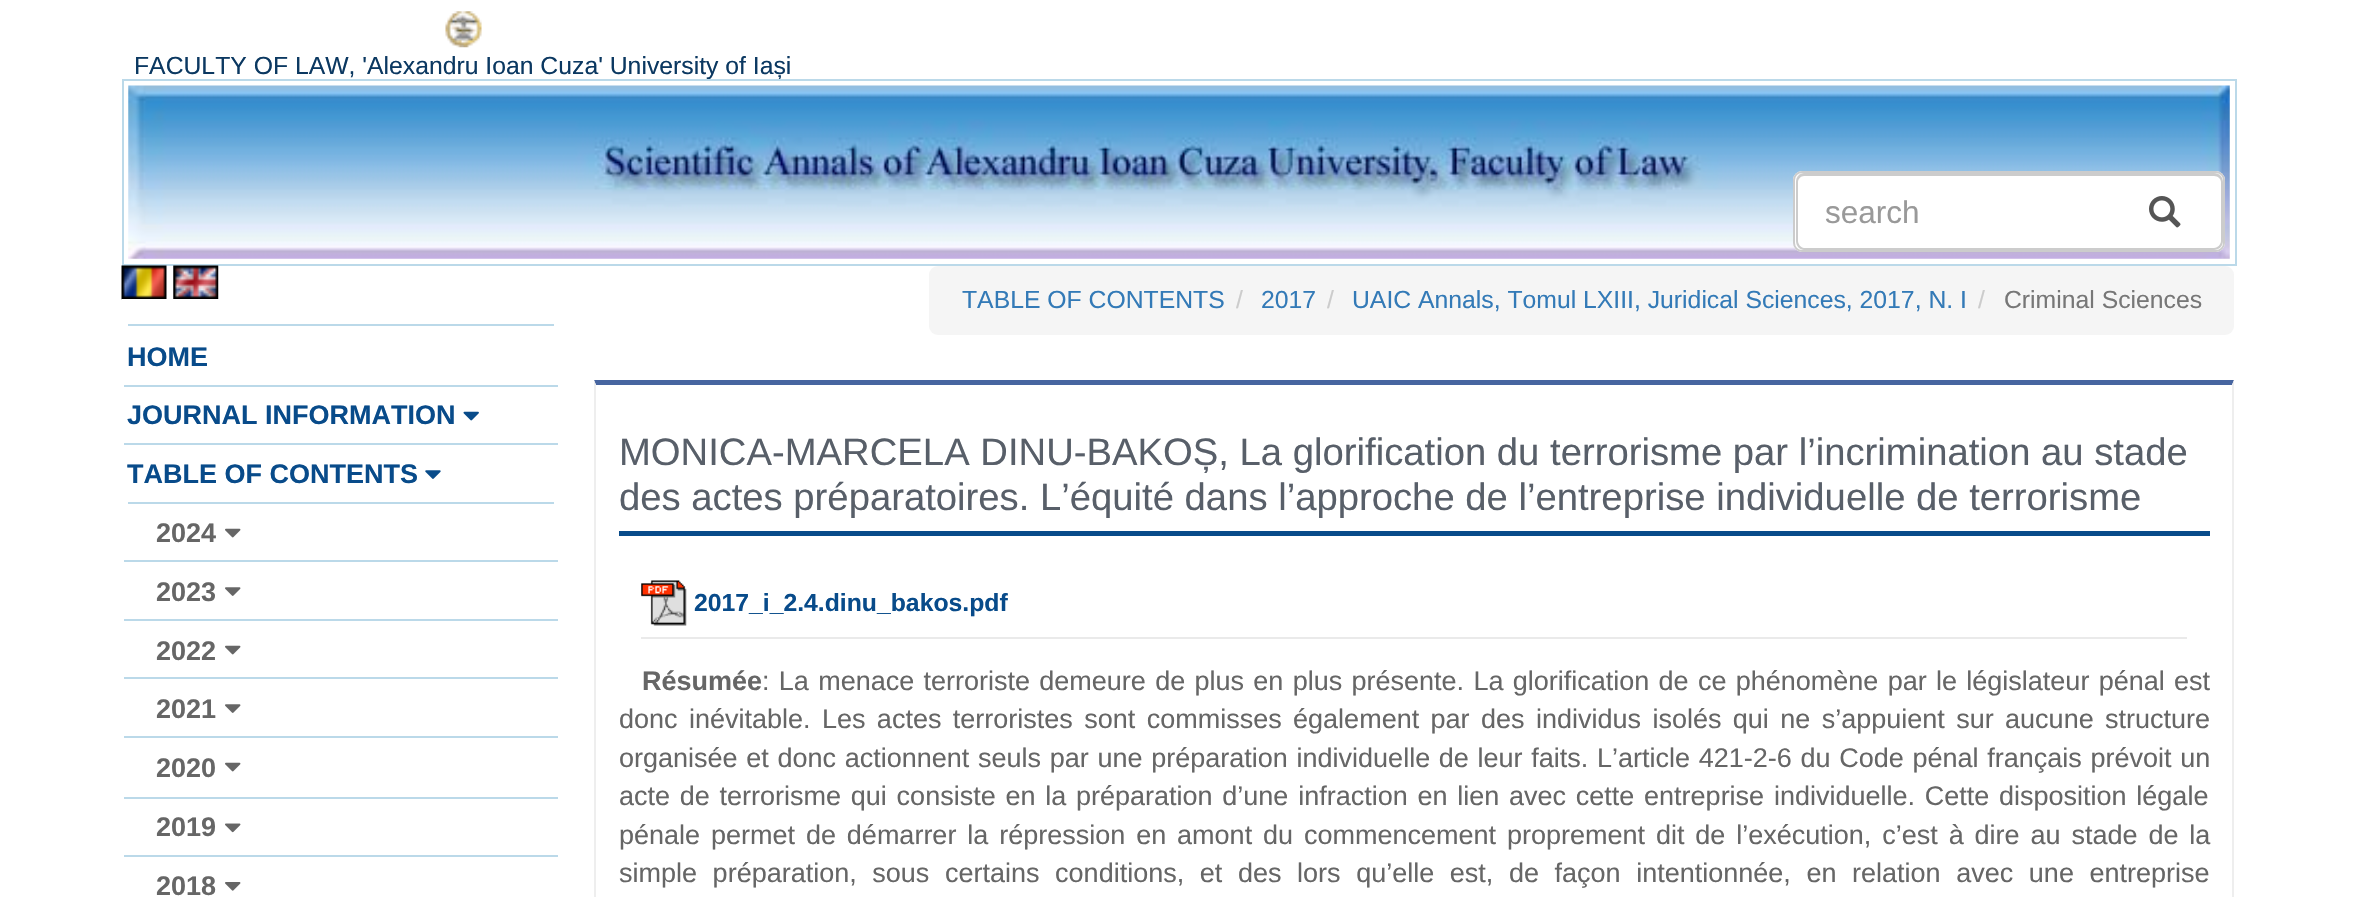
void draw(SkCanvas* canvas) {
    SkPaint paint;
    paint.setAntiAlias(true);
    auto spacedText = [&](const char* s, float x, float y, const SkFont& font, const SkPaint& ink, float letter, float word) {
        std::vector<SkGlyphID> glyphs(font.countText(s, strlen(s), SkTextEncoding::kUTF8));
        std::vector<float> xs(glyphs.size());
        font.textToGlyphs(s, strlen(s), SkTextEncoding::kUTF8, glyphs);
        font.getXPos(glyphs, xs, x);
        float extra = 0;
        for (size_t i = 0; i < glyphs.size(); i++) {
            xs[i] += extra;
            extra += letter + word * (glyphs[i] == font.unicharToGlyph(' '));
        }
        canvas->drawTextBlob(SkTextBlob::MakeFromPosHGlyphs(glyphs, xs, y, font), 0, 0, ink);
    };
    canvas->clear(0xFFFFFFFF);
    canvas->drawImageRect(SkImages::DeferredFromEncodedData(SkData::MakeFromFileName("img1.png")), SkRect::MakeXYWH(445, 11, 37, 37), SkSamplingOptions());
    SkFont font1(fontMgr->matchFamilyStyle("Liberation Sans", SkFontStyle::Normal()), 24.75f);
    font1.setSubpixel(true);
    paint.setColor(0xFF0B3861);
    canvas->drawString("FACULTY OF LAW, 'Alexandru Ioan Cuza' University of Iași", 134, 74, font1, paint);
    paint.setStyle(SkPaint::kStroke_Style);
    paint.setStrokeWidth(2);
    paint.setColor(0xFFBBD9E9);
    canvas->drawRect(SkRect::MakeXYWH(123, 80, 2113, 185), paint);
    canvas->drawImageRect(SkImages::DeferredFromEncodedData(SkData::MakeFromFileName("img2.png")), SkRect::MakeXYWH(128, 85, 2102, 174), SkSamplingOptions());
    paint.setStyle(SkPaint::kFill_Style);
    paint.setColor(0xFFFFFFFF);
    canvas->drawRoundRect(SkRect::MakeXYWH(1793, 171, 432, 81), 9, 9, paint);
    paint.setColor(0xFFECECEC);
    canvas->drawPath(SkPathBuilder().moveTo(1802, 176).lineTo(2216, 176).cubicTo(2220, 176, 2223, 179, 2223, 182).cubicTo(2223, 178, 2221, 173, 2216, 173).lineTo(1803, 173).cubicTo(1798, 173, 1796, 178, 1796, 182).cubicTo(1796, 179, 1799, 176, 1802, 176).close().detach(), paint);
    paint.setStyle(SkPaint::kStroke_Style);
    paint.setColor(0xFFCCCCCC);
    canvas->drawRoundRect(SkRect::MakeXYWH(1794, 172, 430, 79), 8, 8, paint);
    paint.setStyle(SkPaint::kFill_Style);
    paint.setColor(0xFFFFFFFF);
    canvas->drawPath(SkPathBuilder().moveTo(1805, 173).lineTo(2108, 173).lineTo(2108, 250).lineTo(1805, 250).cubicTo(1800, 250, 1796, 246, 1796, 241).lineTo(1796, 182).cubicTo(1796, 177, 1800, 173, 1805, 173).close().detach(), paint);
    paint.setColor(0xFFCCCCCC);
    canvas->drawPath(SkPathBuilder(SkPathFillType::kEvenOdd).moveTo(1804, 173).lineTo(2108, 173).lineTo(2108, 250).lineTo(1804, 250).cubicTo(1800, 250, 1796, 246, 1796, 241).lineTo(1796, 182).cubicTo(1796, 177, 1800, 173, 1804, 173).close().moveTo(1804, 176).lineTo(2108, 176).lineTo(2108, 248).lineTo(1804, 248).cubicTo(1801, 248, 1798, 244, 1798, 241).lineTo(1798, 182).cubicTo(1798, 179, 1801, 176, 1804, 176).close().detach(), paint);
    SkFont font2(fontMgr->matchFamilyStyle("Liberation Sans", SkFontStyle::Normal()), 31.5f);
    font2.setSubpixel(true);
    paint.setColor(0xFF999999);
    canvas->drawString("search", 1825, 223, font2, paint);
    paint.setColor(0xFFFFFFFF);
    canvas->drawPath(SkPathBuilder().moveTo(2108, 173).lineTo(2214, 173).cubicTo(2219, 173, 2223, 177, 2223, 182).lineTo(2223, 241).cubicTo(2223, 246, 2219, 250, 2214, 250).lineTo(2108, 250).close().detach(), paint);
    paint.setColor(0xFFCCCCCC);
    canvas->drawPath(SkPathBuilder(SkPathFillType::kEvenOdd).moveTo(2108, 173).lineTo(2214, 173).cubicTo(2219, 173, 2223, 177, 2223, 182).lineTo(2223, 241).cubicTo(2223, 246, 2219, 250, 2214, 250).lineTo(2108, 250).close().moveTo(2108, 176).lineTo(2214, 176).cubicTo(2218, 176, 2221, 179, 2221, 182).lineTo(2221, 241).cubicTo(2221, 244, 2218, 248, 2214, 248).lineTo(2108, 248).close().detach(), paint);
    canvas->drawImageRect(SkImages::DeferredFromEncodedData(SkData::MakeFromFileName("img3.png")), SkRect::MakeXYWH(2149, 196, 32, 32), SkSamplingOptions());
    canvas->drawImageRect(SkImages::DeferredFromEncodedData(SkData::MakeFromFileName("img4.png")), SkRect::MakeXYWH(121, 265, 46, 35), SkSamplingOptions());
    canvas->drawImageRect(SkImages::DeferredFromEncodedData(SkData::MakeFromFileName("img5.png")), SkRect::MakeXYWH(173, 265, 46, 34), SkSamplingOptions());
    paint.setColor(0xFFFFFFFF);
    canvas->drawRect(SkRect::MakeXYWH(122, 299, 45, 1), paint);
    paint.setColor(0xFFBBD9E9);
    canvas->drawRect(SkRect::MakeXYWH(128, 324, 426, 2), paint);
    SkFont font3(fontMgr->matchFamilyStyle("Liberation Sans", SkFontStyle::Bold()), 27);
    font3.setSubpixel(true);
    paint.setColor(0xFF084B8A);
    canvas->drawString("HOME", 127, 366, font3, paint);
    paint.setColor(0xFFBBD9E9);
    canvas->drawRect(SkRect::MakeXYWH(124, 385, 434, 2), paint);
    paint.setColor(0xFF084B8A);
    canvas->drawString("JOURNAL INFORMATION", 127, 424, font3, paint);
    canvas->drawImageRect(SkImages::DeferredFromEncodedData(SkData::MakeFromFileName("img6.png")), SkRect::MakeXYWH(463, 411, 16, 10), SkSamplingOptions());
    paint.setColor(0xFFBBD9E9);
    canvas->drawRect(SkRect::MakeXYWH(124, 443, 434, 2), paint);
    paint.setColor(0xFF084B8A);
    canvas->drawString("TABLE OF CONTENTS", 127, 483, font3, paint);
    canvas->drawImageRect(SkImages::DeferredFromEncodedData(SkData::MakeFromFileName("img7.png")), SkRect::MakeXYWH(425, 470, 16, 9), SkSamplingOptions());
    paint.setColor(0xFFBBD9E9);
    canvas->drawRect(SkRect::MakeXYWH(128, 502, 426, 2), paint);
    paint.setColor(0xFF666666);
    canvas->drawString("2024", 156, 542, font3, paint);
    canvas->drawImageRect(SkImages::DeferredFromEncodedData(SkData::MakeFromFileName("img8.png")), SkRect::MakeXYWH(225, 528, 16, 10), SkSamplingOptions());
    paint.setColor(0xFFBBD9E9);
    canvas->drawRect(SkRect::MakeXYWH(124, 560, 434, 2), paint);
    paint.setColor(0xFF666666);
    canvas->drawString("2023", 156, 601, font3, paint);
    canvas->drawImageRect(SkImages::DeferredFromEncodedData(SkData::MakeFromFileName("img9.png")), SkRect::MakeXYWH(225, 587, 16, 9), SkSamplingOptions());
    paint.setColor(0xFFBBD9E9);
    canvas->drawRect(SkRect::MakeXYWH(124, 619, 434, 2), paint);
    paint.setColor(0xFF666666);
    canvas->drawString("2022", 156, 660, font3, paint);
    canvas->drawImageRect(SkImages::DeferredFromEncodedData(SkData::MakeFromFileName("img8.png")), SkRect::MakeXYWH(225, 645, 16, 10), SkSamplingOptions());
    paint.setColor(0xFFBBD9E9);
    canvas->drawRect(SkRect::MakeXYWH(124, 677, 434, 2), paint);
    paint.setColor(0xFF666666);
    canvas->drawString("2021", 156, 718, font3, paint);
    canvas->drawImageRect(SkImages::DeferredFromEncodedData(SkData::MakeFromFileName("img9.png")), SkRect::MakeXYWH(225, 704, 16, 9), SkSamplingOptions());
    paint.setColor(0xFFBBD9E9);
    canvas->drawRect(SkRect::MakeXYWH(124, 736, 434, 2), paint);
    paint.setColor(0xFF666666);
    canvas->drawString("2020", 156, 777, font3, paint);
    canvas->drawImageRect(SkImages::DeferredFromEncodedData(SkData::MakeFromFileName("img8.png")), SkRect::MakeXYWH(225, 762, 16, 10), SkSamplingOptions());
    paint.setColor(0xFFBBD9E9);
    canvas->drawRect(SkRect::MakeXYWH(124, 797, 434, 2), paint);
    paint.setColor(0xFF666666);
    canvas->drawString("2019", 156, 836, font3, paint);
    canvas->drawImageRect(SkImages::DeferredFromEncodedData(SkData::MakeFromFileName("img10.png")), SkRect::MakeXYWH(225, 823, 16, 10), SkSamplingOptions());
    paint.setColor(0xFFBBD9E9);
    canvas->drawRect(SkRect::MakeXYWH(124, 855, 434, 2), paint);
    paint.setColor(0xFF666666);
    canvas->drawString("2018", 156, 895, font3, paint);
    canvas->drawImageRect(SkImages::DeferredFromEncodedData(SkData::MakeFromFileName("img11.png")), SkRect::MakeXYWH(225, 882, 16, 9), SkSamplingOptions());
    paint.setColor(0xFFF5F5F5);
    canvas->drawRoundRect(SkRect::MakeXYWH(929, 266, 1305, 69), 9, 9, paint);
    paint.setColor(0xFF337AB7);
    canvas->drawString("TABLE OF CONTENTS", 962, 308, font1, paint);
    paint.setColor(0xFFCCCCCC);
    canvas->drawString("/", 1236, 308, font1, paint);
    paint.setColor(0xFF337AB7);
    canvas->drawString("2017", 1261, 308, font1, paint);
    paint.setColor(0xFFCCCCCC);
    canvas->drawString("/", 1327, 308, font1, paint);
    paint.setColor(0xFF337AB7);
    canvas->drawString("UAIC Annals, Tomul LXIII, Juridical Sciences, 2017, N. I", 1352, 308, font1, paint);
    paint.setColor(0xFFCCCCCC);
    canvas->drawString("/", 1978, 308, font1, paint);
    paint.setColor(0xFF777777);
    canvas->drawString("Criminal Sciences", 2004, 308, font1, paint);
    paint.setColor(0xFF4765A0);
    canvas->drawPath(SkPathBuilder().moveTo(594, 380).lineTo(2234, 380).lineTo(2232, 385).lineTo(596, 385).close().detach(), paint);
    paint.setColor(0xFFEEEEEE);
    canvas->drawPath(SkPathBuilder().moveTo(2234, 380).lineTo(2234, 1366).lineTo(2232, 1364).lineTo(2232, 385).close().detach(), paint);
    canvas->drawPath(SkPathBuilder().moveTo(594, 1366).lineTo(594, 380).lineTo(596, 385).lineTo(596, 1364).close().detach(), paint);
    paint.setStyle(SkPaint::kStroke_Style);
    paint.setStrokeWidth(2.2f);
    paint.setColor(0xFFE4E9F0);
    paint.setPathEffect(SkDashPathEffect::Make({{2.25f, 2.25f}}, 0));
    canvas->drawPath(SkPathBuilder().moveTo(619, 532).lineTo(2209.5f, 532).detach(), paint);
    paint.setPathEffect(nullptr);
    paint.setStyle(SkPaint::kFill_Style);
    paint.setColor(0xFF084B8A);
    canvas->drawRect(SkRect::MakeXYWH(619, 531, 1591, 5), paint);
    SkFont font4(fontMgr->matchFamilyStyle("Liberation Sans", SkFontStyle::Normal()), 38.25f);
    font4.setSubpixel(true);
    paint.setColor(0xFF585F69);
    canvas->drawString("MONICA-MARCELA DINU-BAKOȘ, La glorification du terrorisme par l’incrimination au stade", 619, 465, font4, paint);
    canvas->drawString("des actes préparatoires. L’équité dans l’approche de l’entreprise individuelle de terrorisme", 619, 510, font4, paint);
    paint.setColor(0xFFEAEAEA);
    canvas->drawRect(SkRect::MakeXYWH(641, 637, 1546, 2), paint);
    canvas->drawImageRect(SkImages::DeferredFromEncodedData(SkData::MakeFromFileName("img12.png")), SkRect::MakeXYWH(641, 580, 46, 46), SkSamplingOptions());
    SkFont font5(fontMgr->matchFamilyStyle("Liberation Sans", SkFontStyle::Bold()), 24.75f);
    font5.setSubpixel(true);
    paint.setColor(0xFF084B8A);
    canvas->drawString("2017_i_2.4.dinu_bakos.pdf", 694, 611, font5, paint);
    paint.setColor(0xFF666666);
    canvas->drawString("Résumée", 642, 690, font3, paint);
    SkFont font6(fontMgr->matchFamilyStyle("Liberation Sans", SkFontStyle::Normal()), 27);
    font6.setSubpixel(true);
    spacedText(": La menace terroriste demeure de plus en plus présente. La glorification de ce phénomène par le législateur pénal est", 762, 690, font6, paint, 0, 1.8f);
    spacedText("donc inévitable. Les actes terroristes sont commisses également par des individus isolés qui ne s’appuient sur aucune structure", 619, 728, font6, paint, 0, 3.9f);
    spacedText("organisée et donc actionnent seuls par une préparation individuelle de leur faits. L’article 421-2-6 du Code pénal français prévoit un", 619, 767, font6, paint, 0, 1.2f);
    spacedText("acte de terrorisme qui consiste en la préparation d’une infraction en lien avec cette entreprise individuelle. Cette disposition légale", 619, 805, font6, paint, 0, 2.25f);
    spacedText("pénale permet de démarrer la répression en amont du commencement proprement dit de l’exécution, c’est à dire au stade de la", 619, 844, font6, paint, 0, 3.4f);
    spacedText("simple préparation, sous certains conditions, et des lors qu’elle est, de façon intentionnée, en relation avec une entreprise", 619, 882, font6, paint, 0, 8.1f);
}
